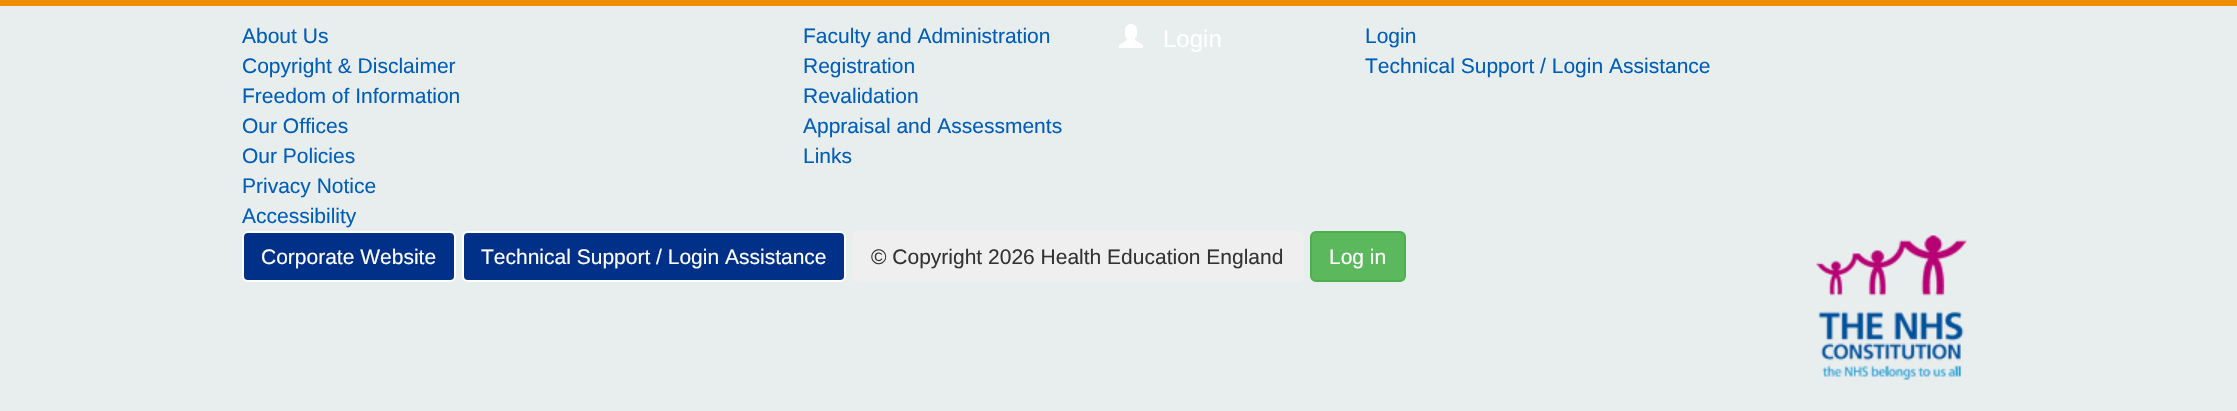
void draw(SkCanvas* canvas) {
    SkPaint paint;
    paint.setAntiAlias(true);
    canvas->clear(0xFFE8EDEE);
    paint.setColor(0xFFED8D00);
    canvas->drawRect(SkRect::MakeXYWH(0, 0, 2237, 6), paint);
    SkFont font1(fontMgr->matchFamilyStyle("Liberation Sans", SkFontStyle::Normal()), 21);
    font1.setSubpixel(true);
    paint.setColor(0xFF005EB8);
    canvas->drawString("About Us", 242, 43, font1, paint);
    canvas->drawString("Copyright & Disclaimer", 242, 73, font1, paint);
    canvas->drawString("Freedom of Information", 242, 103, font1, paint);
    canvas->drawString("Our Offices", 242, 133, font1, paint);
    canvas->drawString("Our Policies", 242, 163, font1, paint);
    canvas->drawString("Privacy Notice", 242, 193, font1, paint);
    canvas->drawString("Accessibility", 242, 223, font1, paint);
    canvas->drawString("Faculty and Administration", 803, 43, font1, paint);
    canvas->drawString("Registration", 803, 73, font1, paint);
    canvas->drawString("Revalidation", 803, 103, font1, paint);
    canvas->drawString("Appraisal and Assessments", 803, 133, font1, paint);
    canvas->drawString("Links", 803, 163, font1, paint);
    canvas->drawString("Login", 1365, 43, font1, paint);
    canvas->drawString("Technical Support / Login Assistance", 1365, 73, font1, paint);
    paint.setColor(0xFF003087);
    canvas->drawRoundRect(SkRect::MakeXYWH(243, 232, 212, 49), 5, 5, paint);
    paint.setStyle(SkPaint::kStroke_Style);
    paint.setStrokeWidth(2);
    paint.setColor(0xFFFFFFFF);
    canvas->drawRoundRect(SkRect::MakeXYWH(243, 232, 212, 49), 5, 5, paint);
    paint.setStyle(SkPaint::kFill_Style);
    canvas->drawString("Corporate Website", 261, 264, font1, paint);
    paint.setColor(0xFF003087);
    canvas->drawRoundRect(SkRect::MakeXYWH(463, 232, 382, 49), 5, 5, paint);
    paint.setStyle(SkPaint::kStroke_Style);
    paint.setColor(0xFFFFFFFF);
    canvas->drawRoundRect(SkRect::MakeXYWH(463, 232, 382, 49), 5, 5, paint);
    paint.setStyle(SkPaint::kFill_Style);
    canvas->drawString("Technical Support / Login Assistance", 481, 264, font1, paint);
    paint.setColor(0xFFEFEFEF);
    canvas->drawRoundRect(SkRect::MakeXYWH(852, 231, 452, 51), 6, 6, paint);
    paint.setColor(0xFF333333);
    canvas->drawString("© Copyright 2026 Health Education England", 871, 264, font1, paint);
    paint.setColor(0xFF5CB85C);
    canvas->drawRoundRect(SkRect::MakeXYWH(1311, 232, 94, 49), 5, 5, paint);
    paint.setStyle(SkPaint::kStroke_Style);
    paint.setColor(0xFF4CAE4C);
    canvas->drawRoundRect(SkRect::MakeXYWH(1311, 232, 94, 49), 5, 5, paint);
    paint.setStyle(SkPaint::kFill_Style);
    paint.setColor(0xFFFFFFFF);
    canvas->drawString("Log in", 1329, 264, font1, paint);
    canvas->drawImageRect(SkImages::DeferredFromEncodedData(SkData::MakeFromFileName("img1.png")), SkRect::MakeXYWH(1816, 235, 151, 145), SkSamplingOptions());
    canvas->drawImageRect(SkImages::DeferredFromEncodedData(SkData::MakeFromFileName("img2.png")), SkRect::MakeXYWH(1119, 24, 24, 24), SkSamplingOptions());
    SkFont font2(fontMgr->matchFamilyStyle("Liberation Sans", SkFontStyle::Normal()), 24);
    font2.setSubpixel(true);
    canvas->drawString("Login", 1163, 47, font2, paint);
}
